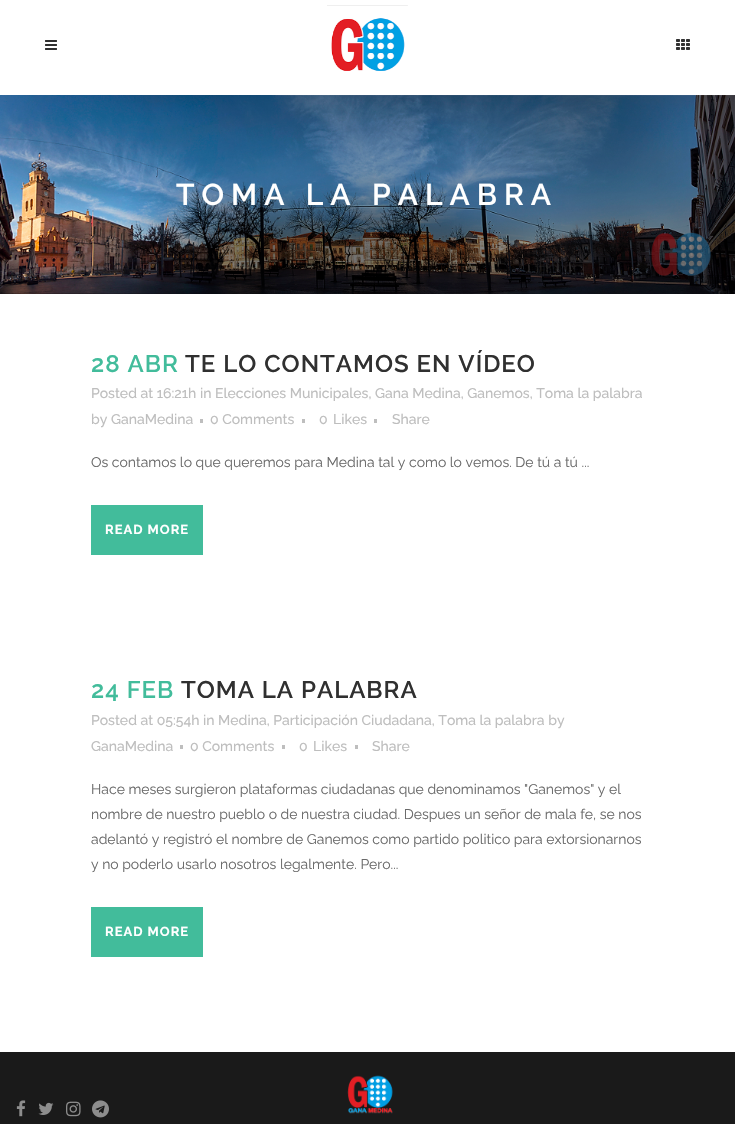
void draw(SkCanvas* canvas) {
    SkPaint paint;
    paint.setAntiAlias(true);
    auto spacedText = [&](const char* s, float x, float y, const SkFont& font, const SkPaint& ink, float letter, float word) {
        std::vector<SkGlyphID> glyphs(font.countText(s, strlen(s), SkTextEncoding::kUTF8));
        std::vector<float> xs(glyphs.size());
        font.textToGlyphs(s, strlen(s), SkTextEncoding::kUTF8, glyphs);
        font.getXPos(glyphs, xs, x);
        float extra = 0;
        for (size_t i = 0; i < glyphs.size(); i++) {
            xs[i] += extra;
            extra += letter + word * (glyphs[i] == font.unicharToGlyph(' '));
        }
        canvas->drawTextBlob(SkTextBlob::MakeFromPosHGlyphs(glyphs, xs, y, font), 0, 0, ink);
    };
    canvas->clear(0xFFFFFFFF);
    canvas->drawImageRect(SkImages::DeferredFromEncodedData(SkData::MakeFromFileName("img1.png")), SkRect::MakeXYWH(45, 40, 12, 10), SkSamplingOptions());
    canvas->drawImageRect(SkImages::DeferredFromEncodedData(SkData::MakeFromFileName("img2.png")), SkRect::MakeXYWH(327, 5, 81, 66), SkSamplingOptions());
    canvas->drawImageRect(SkImages::DeferredFromEncodedData(SkData::MakeFromFileName("img3.png")), SkRect::MakeXYWH(676, 39, 14, 11), SkSamplingOptions());
    canvas->drawImageRect(SkImages::DeferredFromEncodedData(SkData::MakeFromFileName("img4.png")), SkRect::MakeXYWH(0, 95, 735, 199), SkSamplingOptions());
    SkFont font1(fontMgr->matchFamilyStyle("Raleway", SkFontStyle(600, SkFontStyle::kNormal_Width, SkFontStyle::kUpright_Slant)), 30);
    font1.setSubpixel(true);
    paint.setColor(0xFFFFFFFF);
    spacedText("TOMA LA PALABRA", 176, 205, font1, paint, 7, 0);
    SkFont font2(fontMgr->matchFamilyStyle("Raleway", SkFontStyle(600, SkFontStyle::kNormal_Width, SkFontStyle::kUpright_Slant)), 24);
    font2.setSubpixel(true);
    paint.setColor(0xFF42BC9B);
    spacedText("28 ABR", 91, 372, font2, paint, 1, 0);
    paint.setColor(0xFF303030);
    spacedText("TE LO CONTAMOS EN VÍDEO", 185, 372, font2, paint, 1, 0);
    SkFont font3(fontMgr->matchFamilyStyle("Raleway", SkFontStyle(500, SkFontStyle::kNormal_Width, SkFontStyle::kUpright_Slant)), 14);
    font3.setSubpixel(true);
    paint.setColor(0xFFBEBEBE);
    canvas->drawString("Posted at 16:21h in Elecciones Municipales, Gana Medina, Ganemos, Toma la palabra", 91, 398, font3, paint);
    canvas->drawString("by GanaMedina", 91, 424, font3, paint);
    canvas->drawRect(SkRect::MakeXYWH(200, 419, 3, 4), paint);
    canvas->drawString("0 Comments", 210, 424, font3, paint);
    canvas->drawRect(SkRect::MakeXYWH(302, 419, 3, 4), paint);
    canvas->drawString("0", 319, 424, font3, paint);
    canvas->drawString("Likes", 333, 424, font3, paint);
    canvas->drawRect(SkRect::MakeXYWH(374, 419, 3, 4), paint);
    canvas->drawString("Share", 392, 424, font3, paint);
    SkFont font4(fontMgr->matchFamilyStyle("Raleway", SkFontStyle::Normal()), 14);
    font4.setSubpixel(true);
    paint.setColor(0xFF696969);
    canvas->drawString("Os contamos lo que queremos para Medina tal y como lo vemos. De tú a tú ...", 91, 467, font4, paint);
    paint.setColor(0xFF42BC9B);
    canvas->drawRect(SkRect::MakeXYWH(91, 505, 112, 50), paint);
    SkFont font5(fontMgr->matchFamilyStyle("Raleway", SkFontStyle::Bold()), 13);
    font5.setSubpixel(true);
    paint.setColor(0xFFFFFFFF);
    spacedText("READ MORE", 105, 534, font5, paint, 1, 0);
    paint.setColor(0xFF42BC9B);
    spacedText("24 FEB", 91, 698, font2, paint, 1, 0);
    paint.setColor(0xFF303030);
    spacedText("TOMA LA PALABRA", 181, 698, font2, paint, 1, 0);
    paint.setColor(0xFFBEBEBE);
    canvas->drawString("Posted at 05:54h in Medina, Participación Ciudadana, Toma la palabra by", 91, 725, font3, paint);
    canvas->drawString("GanaMedina", 91, 751, font3, paint);
    canvas->drawRect(SkRect::MakeXYWH(180, 745, 3, 4), paint);
    canvas->drawString("0 Comments", 190, 751, font3, paint);
    canvas->drawRect(SkRect::MakeXYWH(282, 745, 3, 4), paint);
    canvas->drawString("0", 299, 751, font3, paint);
    canvas->drawString("Likes", 313, 751, font3, paint);
    canvas->drawRect(SkRect::MakeXYWH(355, 745, 3, 4), paint);
    canvas->drawString("Share", 372, 751, font3, paint);
    paint.setColor(0xFF696969);
    canvas->drawString("Hace meses surgieron plataformas ciudadanas que denominamos \"Ganemos\" y el", 91, 794, font4, paint);
    canvas->drawString("nombre de nuestro pueblo o de nuestra ciudad. Despues un señor de mala fe, se nos", 91, 819, font4, paint);
    canvas->drawString("adelantó y registró el nombre de Ganemos como partido politico para extorsionarnos", 91, 844, font4, paint);
    canvas->drawString("y no poderlo usarlo nosotros legalmente. Pero...", 91, 869, font4, paint);
    paint.setColor(0xFF42BC9B);
    canvas->drawRect(SkRect::MakeXYWH(91, 907, 112, 50), paint);
    paint.setColor(0xFFFFFFFF);
    spacedText("READ MORE", 105, 936, font5, paint, 1, 0);
    paint.setColor(0xFF1A1A1A);
    canvas->drawRect(SkRect::MakeXYWH(0, 1052, 735, 72), paint);
    canvas->drawImageRect(SkImages::DeferredFromEncodedData(SkData::MakeFromFileName("img5.png")), SkRect::MakeXYWH(16, 1100, 10, 17), SkSamplingOptions());
    canvas->drawImageRect(SkImages::DeferredFromEncodedData(SkData::MakeFromFileName("img6.png")), SkRect::MakeXYWH(38, 1102, 16, 13), SkSamplingOptions());
    canvas->drawImageRect(SkImages::DeferredFromEncodedData(SkData::MakeFromFileName("img7.png")), SkRect::MakeXYWH(66, 1101, 15, 16), SkSamplingOptions());
    canvas->drawImageRect(SkImages::DeferredFromEncodedData(SkData::MakeFromFileName("img8.png")), SkRect::MakeXYWH(92, 1100, 17, 18), SkSamplingOptions());
    canvas->drawImageRect(SkImages::DeferredFromEncodedData(SkData::MakeFromFileName("img9.png")), SkRect::MakeXYWH(347, 1075, 46, 39), SkSamplingOptions());
}
